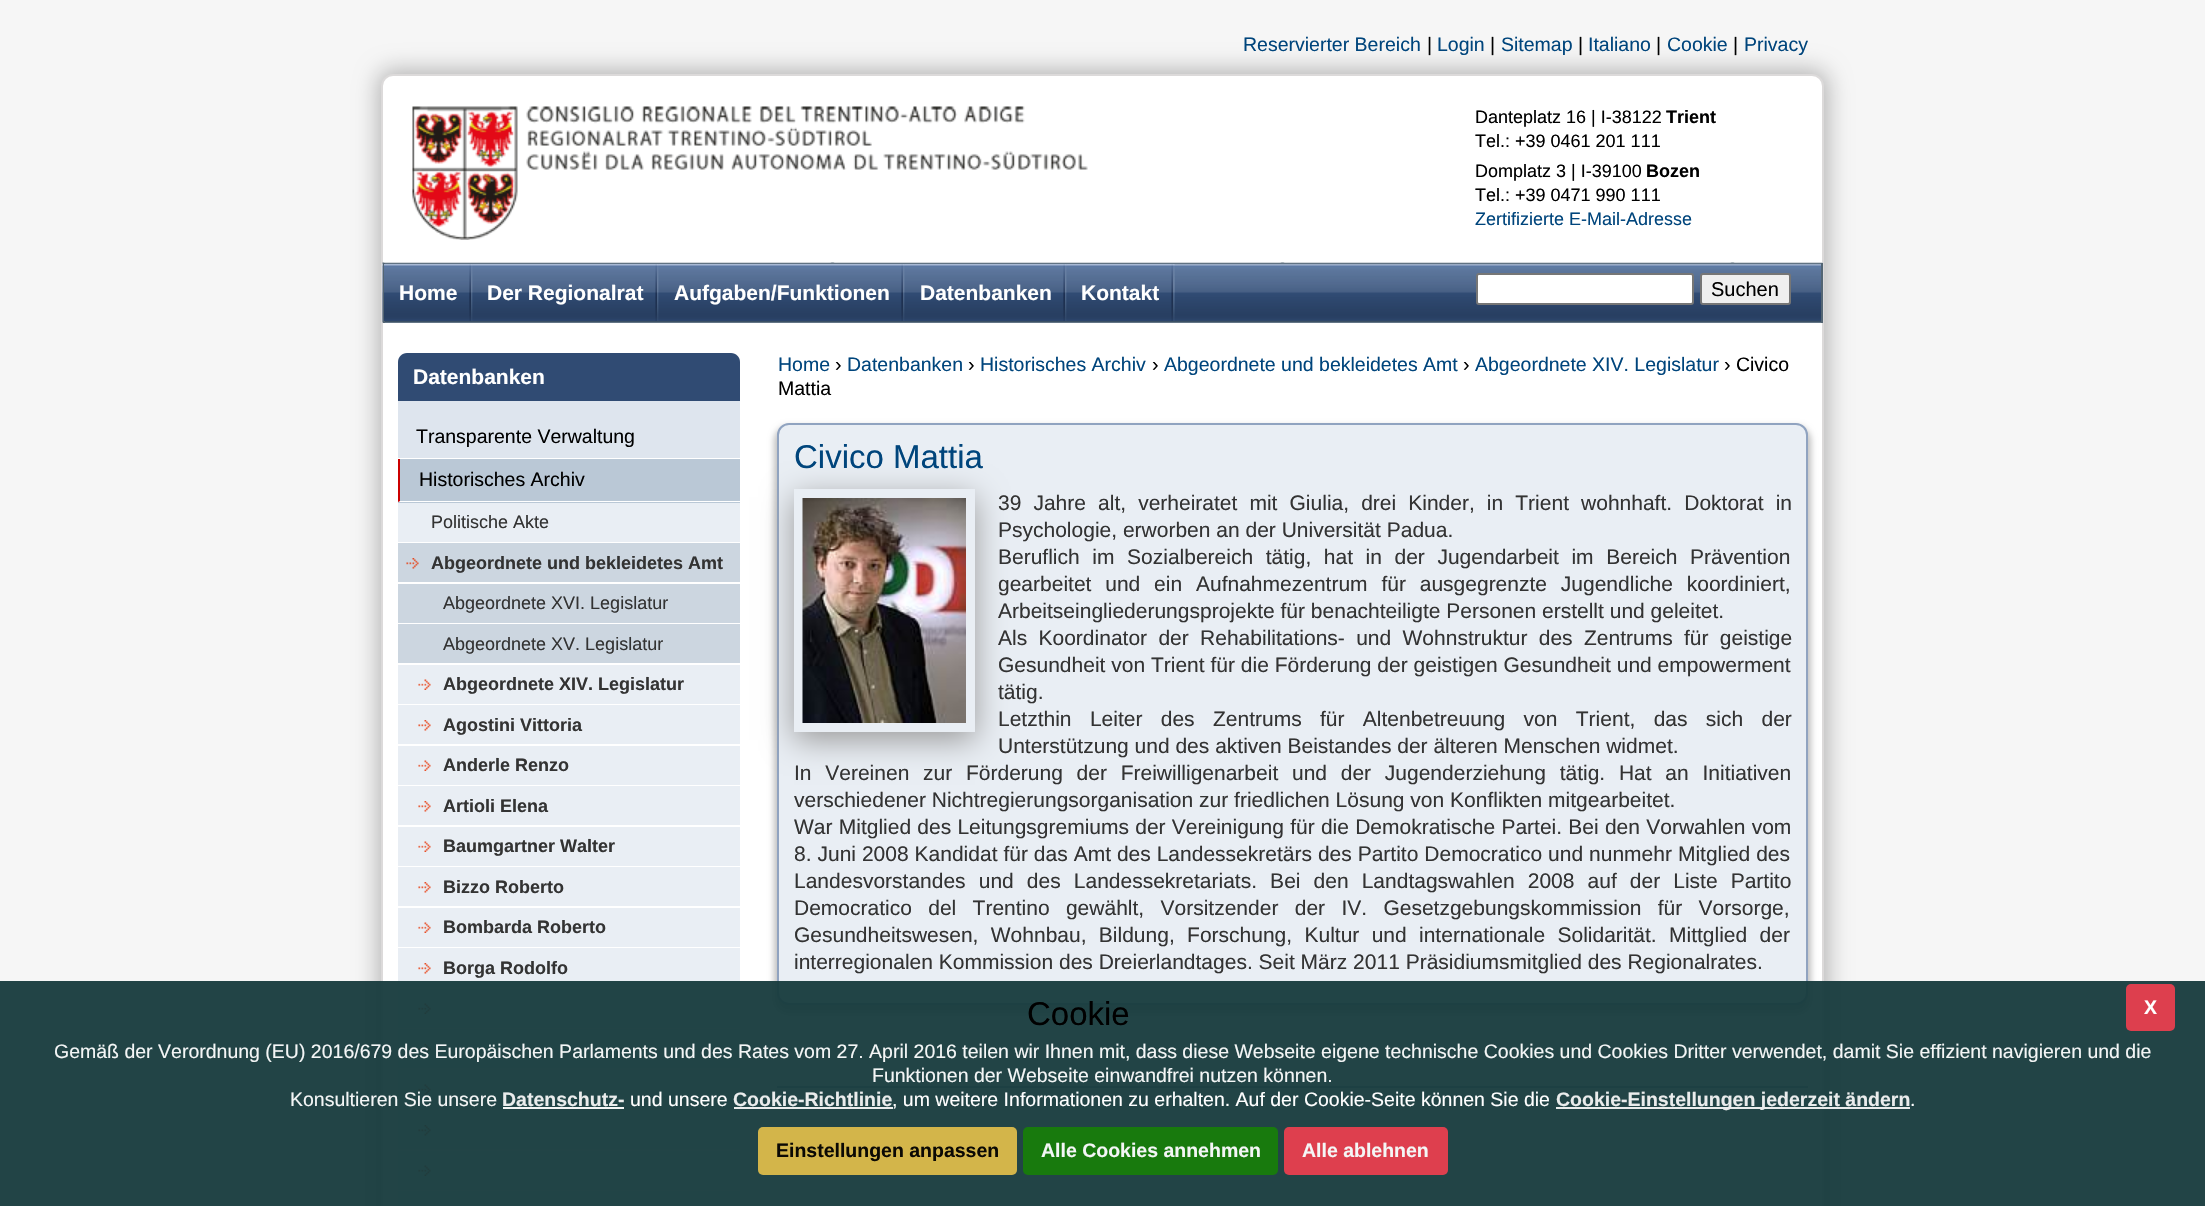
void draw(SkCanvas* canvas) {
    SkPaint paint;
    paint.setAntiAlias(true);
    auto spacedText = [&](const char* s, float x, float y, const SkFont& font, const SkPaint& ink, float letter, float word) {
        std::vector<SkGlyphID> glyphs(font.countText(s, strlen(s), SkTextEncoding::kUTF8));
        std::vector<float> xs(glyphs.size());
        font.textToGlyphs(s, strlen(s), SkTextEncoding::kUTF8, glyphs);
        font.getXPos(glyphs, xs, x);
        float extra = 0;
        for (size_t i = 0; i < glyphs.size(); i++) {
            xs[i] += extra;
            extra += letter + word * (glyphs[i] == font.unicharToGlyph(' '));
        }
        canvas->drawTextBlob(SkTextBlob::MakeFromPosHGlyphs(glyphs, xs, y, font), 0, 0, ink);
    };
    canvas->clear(0xFFF6F6F6);
    paint.setColor(0x40000000);
    paint.setMaskFilter(SkMaskFilter::MakeBlur(kNormal_SkBlurStyle, 11));
    canvas->drawRoundRect(SkRect::MakeXYWH(377, 69, 1452, 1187), 17, 17, paint);
    paint.setMaskFilter(nullptr);
    SkFont font1(fontMgr->matchFamilyStyle("Liberation Sans", SkFontStyle::Normal()), 19.5f);
    font1.setSubpixel(true);
    paint.setColor(0xFF00457C);
    canvas->drawString("Reservierter Bereich", 1243, 51, font1, paint);
    paint.setColor(0xFF000000);
    canvas->drawString("|", 1427, 51, font1, paint);
    paint.setColor(0xFF00457C);
    canvas->drawString("Login", 1437, 51, font1, paint);
    paint.setColor(0xFF000000);
    canvas->drawString("|", 1490, 51, font1, paint);
    paint.setColor(0xFF00457C);
    canvas->drawString("Sitemap", 1501, 51, font1, paint);
    paint.setColor(0xFF000000);
    canvas->drawString("|", 1578, 51, font1, paint);
    paint.setColor(0xFF00457C);
    canvas->drawString("Italiano", 1588, 51, font1, paint);
    paint.setColor(0xFF000000);
    canvas->drawString("|", 1656, 51, font1, paint);
    paint.setColor(0xFF00457C);
    canvas->drawString("Cookie", 1667, 51, font1, paint);
    paint.setColor(0xFF000000);
    canvas->drawString("|", 1733, 51, font1, paint);
    paint.setColor(0xFF00457C);
    canvas->drawString("Privacy", 1744, 51, font1, paint);
    paint.setColor(0xFFFFFFFF);
    canvas->drawRoundRect(SkRect::MakeXYWH(382, 75, 1441, 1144), 11, 11, paint);
    paint.setStyle(SkPaint::kStroke_Style);
    paint.setStrokeWidth(2);
    paint.setColor(0xFFDCDADA);
    canvas->drawRoundRect(SkRect::MakeXYWH(382, 75, 1441, 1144), 11, 11, paint);
    canvas->drawImageRect(SkImages::DeferredFromEncodedData(SkData::MakeFromFileName("img1.png")), SkRect::MakeXYWH(412, 106, 676, 134), SkSamplingOptions());
    SkFont font2(fontMgr->matchFamilyStyle("Liberation Sans", SkFontStyle::Normal()), 18);
    font2.setSubpixel(true);
    paint.setStyle(SkPaint::kFill_Style);
    paint.setColor(0xFF000000);
    canvas->drawString("Danteplatz 16 | I-38122", 1475, 123, font2, paint);
    SkFont font3(fontMgr->matchFamilyStyle("Liberation Sans", SkFontStyle::Bold()), 18);
    font3.setSubpixel(true);
    canvas->drawString("Trient", 1666, 123, font3, paint);
    canvas->drawString("Tel.: +39 0461 201 111", 1475, 147, font2, paint);
    canvas->drawString("Domplatz 3 | I-39100", 1475, 177, font2, paint);
    canvas->drawString("Bozen", 1646, 177, font3, paint);
    canvas->drawString("Tel.: +39 0471 990 111", 1475, 201, font2, paint);
    paint.setColor(0xFF00457C);
    canvas->drawString("Zertifizierte E-Mail-Adresse", 1475, 225, font2, paint);
    paint.setColor(0xFF8998A8);
    canvas->drawRect(SkRect::MakeXYWH(385, 322, 1436, 1), paint);
    canvas->drawImageRect(SkImages::DeferredFromEncodedData(SkData::MakeFromFileName("img2.png")), SkRect::MakeXYWH(382, 262, 1441, 61), SkSamplingOptions());
    paint.setColor(0xFF536573);
    canvas->drawRect(SkRect::MakeXYWH(1821, 263, 2, 60), paint);
    canvas->drawRect(SkRect::MakeXYWH(383, 263, 2, 60), paint);
    canvas->drawImageRect(SkImages::DeferredFromEncodedData(SkData::MakeFromFileName("img3.png")), SkRect::MakeXYWH(384, 264, 89, 57), SkSamplingOptions());
    SkFont font4(fontMgr->matchFamilyStyle("Liberation Sans", SkFontStyle::Bold()), 21);
    font4.setSubpixel(true);
    paint.setColor(0xFFFFFFFF);
    canvas->drawString("Home", 399, 300, font4, paint);
    canvas->drawImageRect(SkImages::DeferredFromEncodedData(SkData::MakeFromFileName("img4.png")), SkRect::MakeXYWH(472, 264, 187, 57), SkSamplingOptions());
    canvas->drawString("Der Regionalrat", 487, 300, font4, paint);
    canvas->drawImageRect(SkImages::DeferredFromEncodedData(SkData::MakeFromFileName("img5.png")), SkRect::MakeXYWH(658, 264, 247, 57), SkSamplingOptions());
    canvas->drawString("Aufgaben/Funktionen", 674, 300, font4, paint);
    canvas->drawImageRect(SkImages::DeferredFromEncodedData(SkData::MakeFromFileName("img6.png")), SkRect::MakeXYWH(904, 264, 163, 57), SkSamplingOptions());
    canvas->drawString("Datenbanken", 920, 300, font4, paint);
    canvas->drawImageRect(SkImages::DeferredFromEncodedData(SkData::MakeFromFileName("img7.png")), SkRect::MakeXYWH(1066, 264, 109, 57), SkSamplingOptions());
    canvas->drawString("Kontakt", 1081, 300, font4, paint);
    canvas->drawRoundRect(SkRect::MakeXYWH(1477, 274, 216, 30), 2, 2, paint);
    paint.setStyle(SkPaint::kStroke_Style);
    paint.setColor(0xFF767676);
    canvas->drawRoundRect(SkRect::MakeXYWH(1477, 274, 216, 30), 2, 2, paint);
    paint.setStyle(SkPaint::kFill_Style);
    paint.setColor(0xFFEFEFEF);
    canvas->drawRoundRect(SkRect::MakeXYWH(1701, 274, 89, 30), 2, 2, paint);
    paint.setStyle(SkPaint::kStroke_Style);
    paint.setColor(0xFF767676);
    canvas->drawRoundRect(SkRect::MakeXYWH(1701, 274, 89, 30), 2, 2, paint);
    SkFont font5(fontMgr->matchFamilyStyle("Liberation Sans", SkFontStyle::Normal()), 20);
    font5.setSubpixel(true);
    paint.setStyle(SkPaint::kFill_Style);
    paint.setColor(0xFF000000);
    canvas->drawString("Suchen", 1711, 296, font5, paint);
    paint.setColor(0xFFDEE5EE);
    canvas->drawRoundRect(SkRect::MakeXYWH(398, 353, 342, 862), 9, 9, paint);
    paint.setColor(0xFF304B73);
    canvas->drawPath(SkPathBuilder().moveTo(407, 353).lineTo(731, 353).cubicTo(736, 353, 740, 357, 740, 362).lineTo(740, 401).lineTo(398, 401).lineTo(398, 362).cubicTo(398, 357, 402, 353, 407, 353).close().detach(), paint);
    paint.setColor(0xFFFFFFFF);
    canvas->drawString("Datenbanken", 413, 384, font4, paint);
    canvas->drawRect(SkRect::MakeXYWH(398, 458, 342, 1), paint);
    paint.setColor(0xFF000000);
    canvas->drawString("Transparente Verwaltung", 416, 443, font1, paint);
    paint.setColor(0xFFBAC8D6);
    canvas->drawRect(SkRect::MakeXYWH(398, 459, 342, 44), paint);
    paint.setColor(0xFFFFFFFF);
    canvas->drawPath(SkPathBuilder().moveTo(740, 502).lineTo(398, 502).lineTo(400, 501).lineTo(740, 501).close().detach(), paint);
    paint.setColor(0xFFCC0000);
    canvas->drawPath(SkPathBuilder().moveTo(398, 502).lineTo(398, 459).lineTo(400, 459).lineTo(400, 501).close().detach(), paint);
    paint.setColor(0xFF000000);
    canvas->drawString("Historisches Archiv", 419, 486, font1, paint);
    paint.setColor(0xFFE9EEF4);
    canvas->drawRect(SkRect::MakeXYWH(398, 503, 342, 39), paint);
    paint.setColor(0xFFFFFFFF);
    canvas->drawRect(SkRect::MakeXYWH(398, 542, 342, 1), paint);
    paint.setColor(0xFF333333);
    canvas->drawString("Politische Akte", 431, 528, font2, paint);
    paint.setColor(0xFFCCD6E0);
    canvas->drawRect(SkRect::MakeXYWH(398, 543, 342, 39), paint);
    canvas->drawImageRect(SkImages::DeferredFromEncodedData(SkData::MakeFromFileName("img8.png")), SkRect::MakeXYWH(406, 558, 13, 11), SkSamplingOptions());
    paint.setColor(0xFFFFFFFF);
    canvas->drawRect(SkRect::MakeXYWH(398, 582, 342, 2), paint);
    paint.setColor(0xFF333333);
    canvas->drawString("Abgeordnete und bekleidetes Amt", 431, 569, font3, paint);
    paint.setColor(0xFFCCD6E0);
    canvas->drawRect(SkRect::MakeXYWH(398, 584, 342, 39), paint);
    paint.setColor(0xFFFFFFFF);
    canvas->drawRect(SkRect::MakeXYWH(398, 623, 342, 1), paint);
    paint.setColor(0xFF333333);
    canvas->drawString("Abgeordnete XVI. Legislatur", 443, 609, font2, paint);
    paint.setColor(0xFFCCD6E0);
    canvas->drawRect(SkRect::MakeXYWH(398, 624, 342, 39), paint);
    paint.setColor(0xFFFFFFFF);
    canvas->drawRect(SkRect::MakeXYWH(398, 663, 342, 2), paint);
    paint.setColor(0xFF333333);
    canvas->drawString("Abgeordnete XV. Legislatur", 443, 650, font2, paint);
    paint.setColor(0xFFE9EEF4);
    canvas->drawRect(SkRect::MakeXYWH(398, 665, 342, 39), paint);
    canvas->drawImageRect(SkImages::DeferredFromEncodedData(SkData::MakeFromFileName("img9.png")), SkRect::MakeXYWH(418, 679, 13, 11), SkSamplingOptions());
    paint.setColor(0xFFFFFFFF);
    canvas->drawRect(SkRect::MakeXYWH(398, 704, 342, 1), paint);
    paint.setColor(0xFF333333);
    canvas->drawString("Abgeordnete XIV. Legislatur", 443, 690, font3, paint);
    paint.setColor(0xFFE9EEF4);
    canvas->drawRect(SkRect::MakeXYWH(398, 705, 342, 39), paint);
    canvas->drawImageRect(SkImages::DeferredFromEncodedData(SkData::MakeFromFileName("img10.png")), SkRect::MakeXYWH(418, 720, 13, 11), SkSamplingOptions());
    paint.setColor(0xFFFFFFFF);
    canvas->drawRect(SkRect::MakeXYWH(398, 744, 342, 2), paint);
    paint.setColor(0xFF333333);
    canvas->drawString("Agostini Vittoria", 443, 731, font3, paint);
    paint.setColor(0xFFE9EEF4);
    canvas->drawRect(SkRect::MakeXYWH(398, 746, 342, 39), paint);
    canvas->drawImageRect(SkImages::DeferredFromEncodedData(SkData::MakeFromFileName("img9.png")), SkRect::MakeXYWH(418, 760, 13, 11), SkSamplingOptions());
    paint.setColor(0xFFFFFFFF);
    canvas->drawRect(SkRect::MakeXYWH(398, 785, 342, 1), paint);
    paint.setColor(0xFF333333);
    canvas->drawString("Anderle Renzo", 443, 771, font3, paint);
    paint.setColor(0xFFE9EEF4);
    canvas->drawRect(SkRect::MakeXYWH(398, 786, 342, 39), paint);
    canvas->drawImageRect(SkImages::DeferredFromEncodedData(SkData::MakeFromFileName("img10.png")), SkRect::MakeXYWH(418, 801, 13, 11), SkSamplingOptions());
    paint.setColor(0xFFFFFFFF);
    canvas->drawRect(SkRect::MakeXYWH(398, 825, 342, 2), paint);
    paint.setColor(0xFF333333);
    canvas->drawString("Artioli Elena", 443, 812, font3, paint);
    paint.setColor(0xFFE9EEF4);
    canvas->drawRect(SkRect::MakeXYWH(398, 827, 342, 39), paint);
    canvas->drawImageRect(SkImages::DeferredFromEncodedData(SkData::MakeFromFileName("img9.png")), SkRect::MakeXYWH(418, 841, 13, 11), SkSamplingOptions());
    paint.setColor(0xFFFFFFFF);
    canvas->drawRect(SkRect::MakeXYWH(398, 866, 342, 1), paint);
    paint.setColor(0xFF333333);
    canvas->drawString("Baumgartner Walter", 443, 852, font3, paint);
    paint.setColor(0xFFE9EEF4);
    canvas->drawRect(SkRect::MakeXYWH(398, 867, 342, 39), paint);
    canvas->drawImageRect(SkImages::DeferredFromEncodedData(SkData::MakeFromFileName("img10.png")), SkRect::MakeXYWH(418, 882, 13, 11), SkSamplingOptions());
    paint.setColor(0xFFFFFFFF);
    canvas->drawRect(SkRect::MakeXYWH(398, 906, 342, 2), paint);
    paint.setColor(0xFF333333);
    canvas->drawString("Bizzo Roberto", 443, 893, font3, paint);
    paint.setColor(0xFFE9EEF4);
    canvas->drawRect(SkRect::MakeXYWH(398, 908, 342, 39), paint);
    canvas->drawImageRect(SkImages::DeferredFromEncodedData(SkData::MakeFromFileName("img9.png")), SkRect::MakeXYWH(418, 922, 13, 11), SkSamplingOptions());
    paint.setColor(0xFFFFFFFF);
    canvas->drawRect(SkRect::MakeXYWH(398, 947, 342, 1), paint);
    paint.setColor(0xFF333333);
    canvas->drawString("Bombarda Roberto", 443, 933, font3, paint);
    paint.setColor(0xFFE9EEF4);
    canvas->drawRect(SkRect::MakeXYWH(398, 948, 342, 39), paint);
    canvas->drawImageRect(SkImages::DeferredFromEncodedData(SkData::MakeFromFileName("img10.png")), SkRect::MakeXYWH(418, 963, 13, 11), SkSamplingOptions());
    paint.setColor(0xFFFFFFFF);
    canvas->drawRect(SkRect::MakeXYWH(398, 987, 342, 2), paint);
    paint.setColor(0xFF333333);
    canvas->drawString("Borga Rodolfo", 443, 974, font3, paint);
    paint.setColor(0xFFE9EEF4);
    canvas->drawRect(SkRect::MakeXYWH(398, 989, 342, 39), paint);
    canvas->drawImageRect(SkImages::DeferredFromEncodedData(SkData::MakeFromFileName("img9.png")), SkRect::MakeXYWH(418, 1003, 13, 11), SkSamplingOptions());
    paint.setColor(0xFFFFFFFF);
    canvas->drawRect(SkRect::MakeXYWH(398, 1028, 342, 1), paint);
    paint.setColor(0xFFE9EEF4);
    canvas->drawRect(SkRect::MakeXYWH(398, 1029, 342, 39), paint);
    canvas->drawImageRect(SkImages::DeferredFromEncodedData(SkData::MakeFromFileName("img10.png")), SkRect::MakeXYWH(418, 1044, 13, 11), SkSamplingOptions());
    paint.setColor(0xFFFFFFFF);
    canvas->drawRect(SkRect::MakeXYWH(398, 1068, 342, 2), paint);
    paint.setColor(0xFFE9EEF4);
    canvas->drawRect(SkRect::MakeXYWH(398, 1070, 342, 39), paint);
    canvas->drawImageRect(SkImages::DeferredFromEncodedData(SkData::MakeFromFileName("img9.png")), SkRect::MakeXYWH(418, 1084, 13, 11), SkSamplingOptions());
    paint.setColor(0xFFFFFFFF);
    canvas->drawRect(SkRect::MakeXYWH(398, 1109, 342, 1), paint);
    paint.setColor(0xFFE9EEF4);
    canvas->drawRect(SkRect::MakeXYWH(398, 1110, 342, 39), paint);
    canvas->drawImageRect(SkImages::DeferredFromEncodedData(SkData::MakeFromFileName("img10.png")), SkRect::MakeXYWH(418, 1125, 13, 11), SkSamplingOptions());
    paint.setColor(0xFFFFFFFF);
    canvas->drawRect(SkRect::MakeXYWH(398, 1149, 342, 2), paint);
    paint.setColor(0xFFE9EEF4);
    canvas->drawRect(SkRect::MakeXYWH(398, 1151, 342, 39), paint);
    canvas->drawImageRect(SkImages::DeferredFromEncodedData(SkData::MakeFromFileName("img9.png")), SkRect::MakeXYWH(418, 1165, 13, 11), SkSamplingOptions());
    paint.setColor(0xFFFFFFFF);
    canvas->drawRect(SkRect::MakeXYWH(398, 1190, 342, 1), paint);
    paint.setColor(0xFFE9EEF4);
    canvas->drawRect(SkRect::MakeXYWH(398, 1191, 342, 15), paint);
    paint.setColor(0xFF00457C);
    canvas->drawString("Home", 778, 371, font1, paint);
    paint.setColor(0xFF000000);
    canvas->drawString("›", 835, 371, font1, paint);
    paint.setColor(0xFF00457C);
    canvas->drawString("Datenbanken", 847, 371, font1, paint);
    paint.setColor(0xFF000000);
    canvas->drawString("›", 968, 371, font1, paint);
    paint.setColor(0xFF00457C);
    canvas->drawString("Historisches Archiv", 980, 371, font1, paint);
    paint.setColor(0xFF000000);
    canvas->drawString("›", 1152, 371, font1, paint);
    paint.setColor(0xFF00457C);
    canvas->drawString("Abgeordnete und bekleidetes Amt", 1164, 371, font1, paint);
    paint.setColor(0xFF000000);
    canvas->drawString("›", 1463, 371, font1, paint);
    paint.setColor(0xFF00457C);
    canvas->drawString("Abgeordnete XIV. Legislatur", 1475, 371, font1, paint);
    paint.setColor(0xFF000000);
    canvas->drawString("› Civico", 1724, 371, font1, paint);
    canvas->drawString("Mattia", 778, 395, font1, paint);
    paint.setColor(0x40000000);
    paint.setMaskFilter(SkMaskFilter::MakeBlur(kNormal_SkBlurStyle, 3));
    canvas->drawRoundRect(SkRect::MakeXYWH(774, 426, 1037, 588), 15, 15, paint);
    paint.setMaskFilter(nullptr);
    paint.setColor(0xFFE9EEF4);
    canvas->drawRoundRect(SkRect::MakeXYWH(778, 424, 1029, 580), 11, 11, paint);
    paint.setStyle(SkPaint::kStroke_Style);
    paint.setColor(0xFF90A3C0);
    canvas->drawRoundRect(SkRect::MakeXYWH(778, 424, 1029, 580), 11, 11, paint);
    canvas->save();
    canvas->clipPath(SkPathBuilder(SkPathFillType::kEvenOdd).moveTo(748, 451).lineTo(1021, 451).lineTo(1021, 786).lineTo(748, 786).close().moveTo(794, 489).lineTo(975, 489).lineTo(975, 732).lineTo(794, 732).close().detach(), true);
    paint.setStyle(SkPaint::kFill_Style);
    paint.setColor(0xFF999999);
    paint.setMaskFilter(SkMaskFilter::MakeBlur(kNormal_SkBlurStyle, 15));
    canvas->drawRect(SkRect::MakeXYWH(794, 497, 181, 243), paint);
    paint.setMaskFilter(nullptr);
    canvas->restore();
    SkFont font6(fontMgr->matchFamilyStyle("Liberation Sans", SkFontStyle::Normal()), 33);
    font6.setSubpixel(true);
    paint.setColor(0xFF00457C);
    canvas->drawString("Civico Mattia", 794, 468, font6, paint);
    canvas->drawImageRect(SkImages::DeferredFromEncodedData(SkData::MakeFromFileName("img11.png")), SkRect::MakeXYWH(802, 498, 164, 225), SkSamplingOptions());
    SkFont font7(fontMgr->matchFamilyStyle("Liberation Sans", SkFontStyle::Normal()), 21);
    font7.setSubpixel(true);
    paint.setColor(0xFF333333);
    spacedText("39 Jahre alt, verheiratet mit Giulia, drei Kinder, in Trient wohnhaft. Doktorat in", 998, 510, font7, paint, 0, 6.25f);
    canvas->drawString("Psychologie, erworben an der Universität Padua.", 998, 537, font7, paint);
    spacedText("Beruflich im Sozialbereich tätig, hat in der Jugendarbeit im Bereich Prävention", 998, 564, font7, paint, 0, 6.75f);
    spacedText("gearbeitet und ein Aufnahmezentrum für ausgegrenzte Jugendliche koordiniert,", 998, 591, font7, paint, 0, 8);
    canvas->drawString("Arbeitseingliederungsprojekte für benachteiligte Personen erstellt und geleitet.", 998, 618, font7, paint);
    spacedText("Als Koordinator der Rehabilitations- und Wohnstruktur des Zentrums für geistige", 998, 645, font7, paint, 0, 5.5f);
    canvas->drawString("Gesundheit von Trient für die Förderung der geistigen Gesundheit und empowerment", 998, 672, font7, paint);
    canvas->drawString("tätig.", 998, 699, font7, paint);
    spacedText("Letzthin Leiter des Zentrums für Altenbetreuung von Trient, das sich der", 998, 726, font7, paint, 0, 12.5f);
    canvas->drawString("Unterstützung und des aktiven Beistandes der älteren Menschen widmet.", 998, 753, font7, paint);
    spacedText("In Vereinen zur Förderung der Freiwilligenarbeit und der Jugenderziehung tätig. Hat an Initiativen", 794, 780, font7, paint, 0, 7.9f);
    canvas->drawString("verschiedener Nichtregierungsorganisation zur friedlichen Lösung von Konflikten mitgearbeitet.", 794, 807, font7, paint);
    spacedText("War Mitglied des Leitungsgremiums der Vereinigung für die Demokratische Partei. Bei den Vorwahlen vom", 794, 834, font7, paint, 0, 0.4f);
    spacedText("8. Juni 2008 Kandidat für das Amt des Landessekretärs des Partito Democratico und nunmehr Mitglied des", 794, 861, font7, paint, 0, 0.1f);
    spacedText("Landesvorstandes und des Landessekretariats. Bei den Landtagswahlen 2008 auf der Liste Partito", 794, 888, font7, paint, 0, 7.25f);
    spacedText("Democratico del Trentino gewählt, Vorsitzender der IV. Gesetzgebungskommission für Vorsorge,", 794, 915, font7, paint, 0, 10.5f);
    spacedText("Gesundheitswesen, Wohnbau, Bildung, Forschung, Kultur und internationale Solidarität. Mittglied der", 794, 942, font7, paint, 0, 6.5f);
    canvas->drawString("interregionalen Kommission des Dreierlandtages. Seit März 2011 Präsidiumsmitglied des Regionalrates.", 794, 969, font7, paint);
    paint.setColor(0xFF90A3C0);
    canvas->drawRect(SkRect::MakeXYWH(777, 1086, 1031, 2), paint);
    paint.setColor(0xF2163A3C);
    canvas->drawRect(SkRect::MakeXYWH(0, 981, 2205, 225), paint);
    paint.setColor(0xFF000000);
    canvas->drawString("Cookie", 1027, 1025, font6, paint);
    paint.setColor(0xFFDD3F4E);
    canvas->drawRoundRect(SkRect::MakeXYWH(2126, 984, 49, 47), 5, 5, paint);
    SkFont font8(fontMgr->matchFamilyStyle("Liberation Sans", SkFontStyle::Bold()), 19.5f);
    font8.setSubpixel(true);
    paint.setColor(0xFFFFFFFF);
    canvas->drawString("X", 2144, 1014, font8, paint);
    paint.setColor(0xFFF4F6F6);
    canvas->drawString("Gemäß der Verordnung (EU) 2016/679 des Europäischen Parlaments und des Rates vom 27. April 2016 teilen wir Ihnen mit, dass diese Webseite eigene technische Cookies und Cookies Dritter verwendet, damit Sie effizient navigieren und die", 54, 1058, font1, paint);
    canvas->drawString("Funktionen der Webseite einwandfrei nutzen können.", 872, 1082, font1, paint);
    canvas->drawString("Konsultieren Sie unsere", 290, 1106, font1, paint);
    paint.setColor(0xFFEAECEC);
    canvas->drawString("Datenschutz-", 502, 1106, font8, paint);
    paint.setColor(0xFFF4F5F5);
    canvas->drawRect(SkRect::MakeXYWH(503, 1107, 121, 2), paint);
    paint.setColor(0xFFFFFFFF);
    canvas->drawString("und unsere", 630, 1106, font1, paint);
    paint.setColor(0xFFEAECEC);
    canvas->drawString("Cookie-Richtlinie", 733, 1106, font8, paint);
    paint.setColor(0xF2F5F5F5);
    canvas->drawRect(SkRect::MakeXYWH(734, 1107, 159, 2), paint);
    paint.setColor(0xFFFFFFFF);
    canvas->drawString(", um weitere Informationen zu erhalten. Auf der Cookie-Seite können Sie die", 892, 1106, font1, paint);
    paint.setColor(0xFFEAECEC);
    canvas->drawRect(SkRect::MakeXYWH(1556, 1107, 354, 2), paint);
    canvas->drawString("Cookie-Einstellungen jederzeit ändern", 1556, 1106, font8, paint);
    paint.setColor(0xFFFFFFFF);
    canvas->drawString(".", 1910, 1106, font1, paint);
    paint.setColor(0xF2DCBA4A);
    canvas->drawRoundRect(SkRect::MakeXYWH(758, 1127, 259, 48), 5, 5, paint);
    paint.setColor(0xFF0B0904);
    canvas->drawString("Einstellungen anpassen", 776, 1157, font8, paint);
    paint.setColor(0xF2177C09);
    canvas->drawRoundRect(SkRect::MakeXYWH(1023, 1127, 255, 48), 5, 5, paint);
    paint.setColor(0xFFF4F6F6);
    canvas->drawString("Alle Cookies annehmen", 1041, 1157, font8, paint);
    paint.setColor(0xFFDE3F4E);
    canvas->drawRoundRect(SkRect::MakeXYWH(1284, 1127, 164, 48), 5, 5, paint);
    paint.setColor(0xFFF4F6F6);
    canvas->drawString("Alle ablehnen", 1302, 1157, font8, paint);
}
